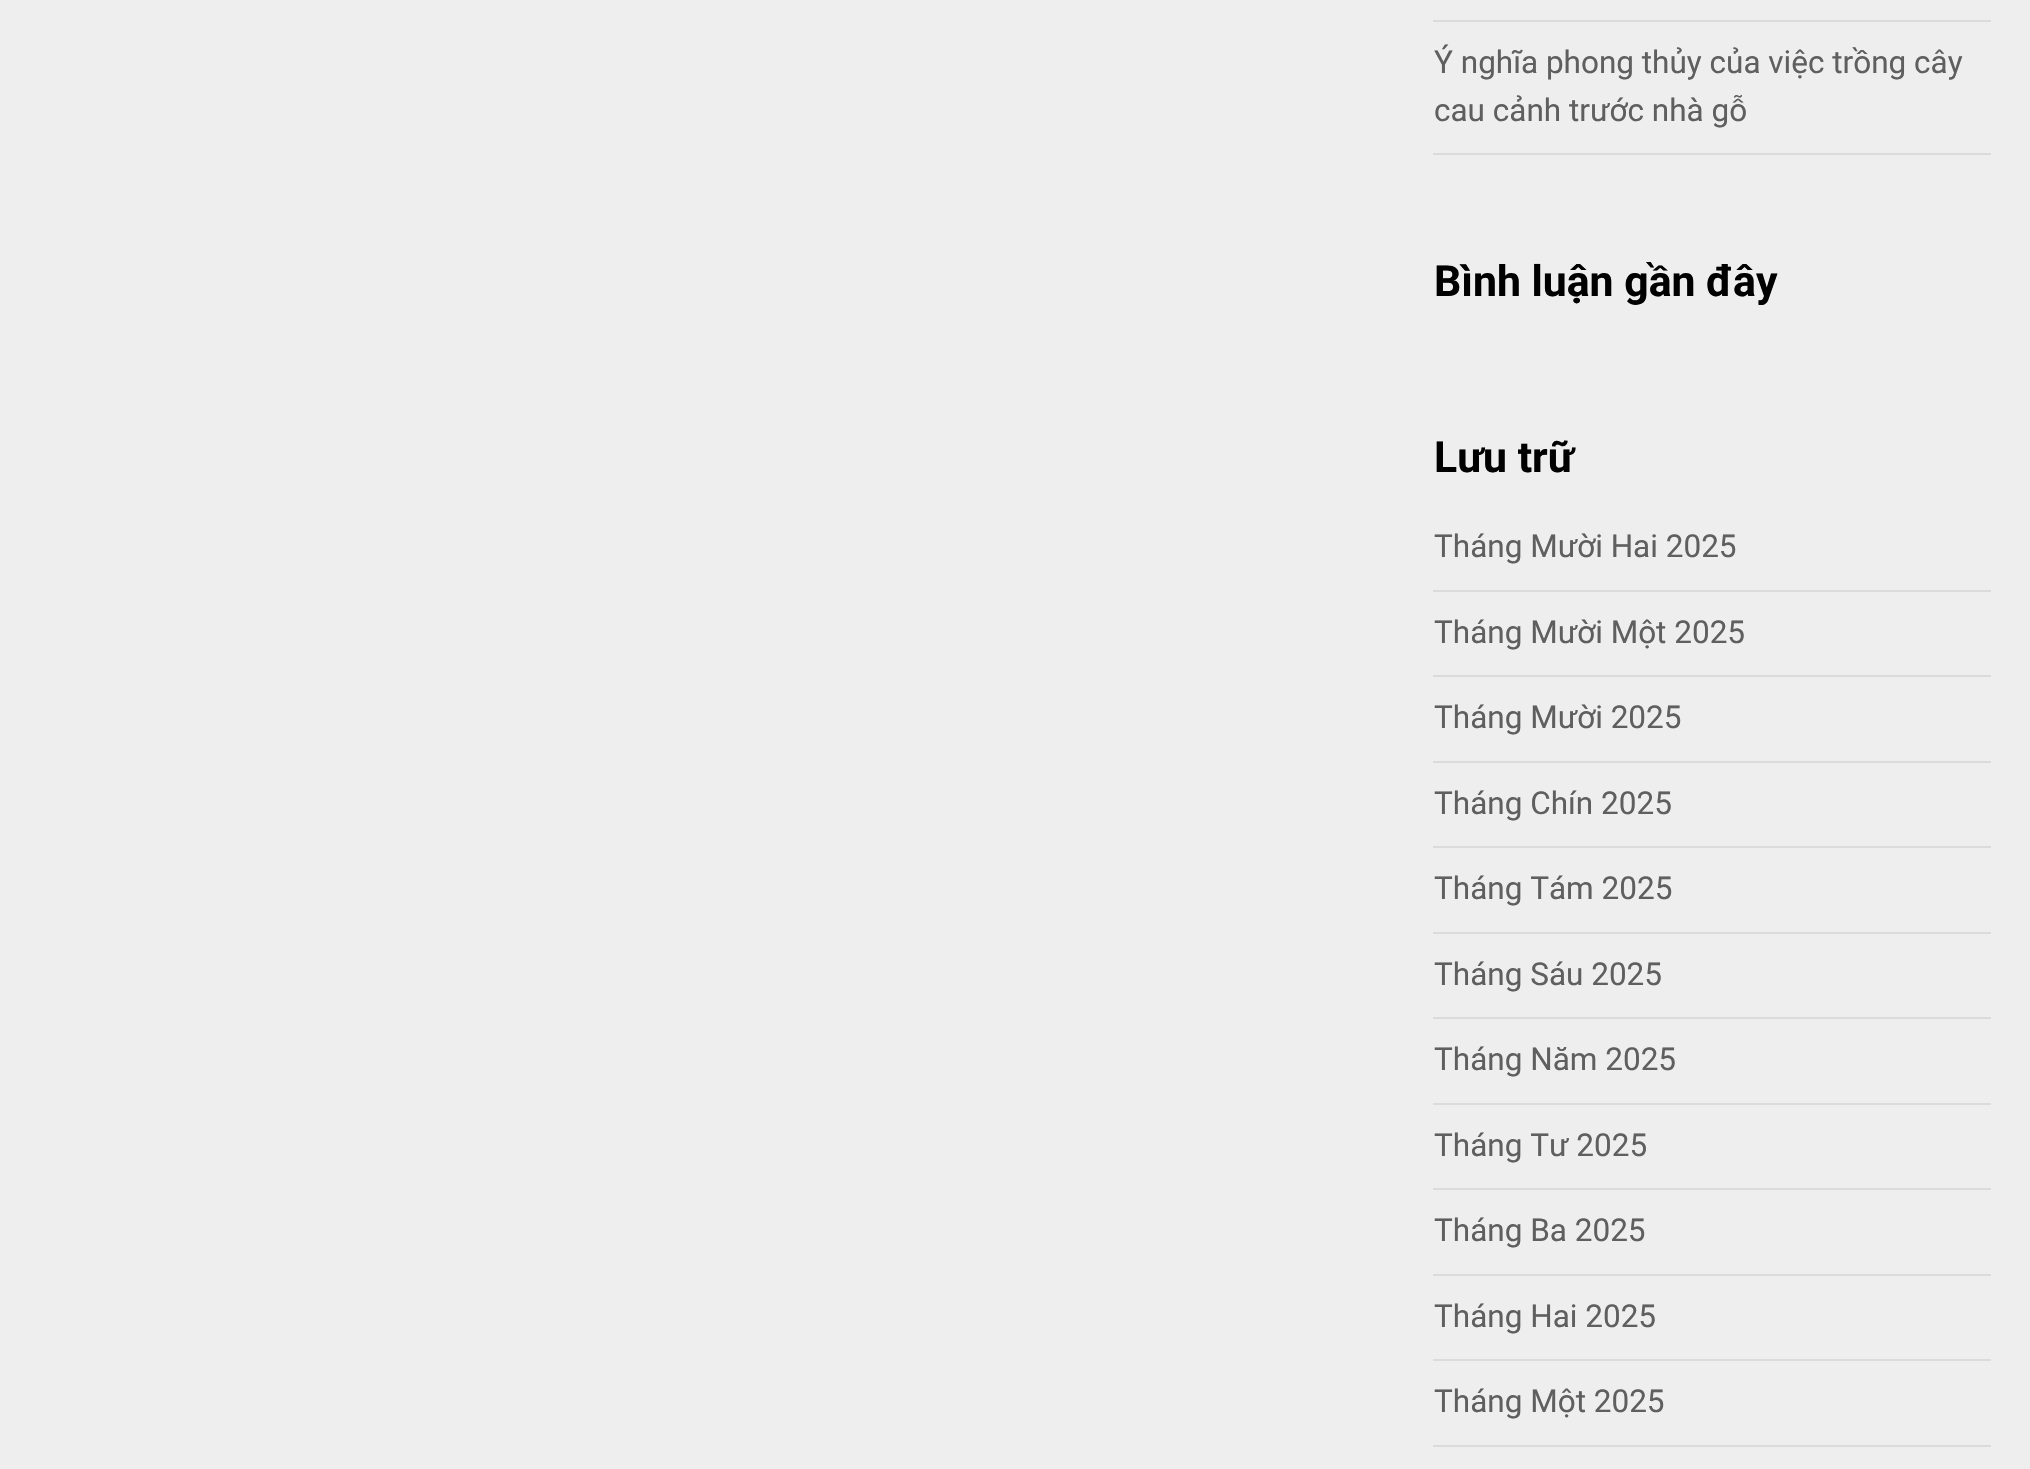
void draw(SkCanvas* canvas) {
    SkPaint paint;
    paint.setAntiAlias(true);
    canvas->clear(0xFFEEEEEE);
    paint.setColor(0xFFDBDBDB);
    canvas->drawRect(SkRect::MakeXYWH(1433, 20, 558, 2), paint);
    canvas->drawRect(SkRect::MakeXYWH(1433, 153, 558, 2), paint);
    SkFont font1(fontMgr->matchFamilyStyle("Roboto", SkFontStyle::Normal()), 31.5f);
    font1.setSubpixel(true);
    paint.setColor(0xFF5F5F5F);
    canvas->drawString("Ý nghĩa phong thủy của việc trồng cây", 1434, 73, font1, paint);
    canvas->drawString("cau cảnh trước nhà gỗ", 1434, 121, font1, paint);
    SkFont font2(fontMgr->matchFamilyStyle("Roboto", SkFontStyle::Bold()), 42.75f);
    font2.setSubpixel(true);
    paint.setColor(0xFF000000);
    canvas->drawString("Bình luận gần đây", 1434, 296, font2, paint);
    canvas->drawString("Lưu trữ", 1434, 472, font2, paint);
    paint.setColor(0xFFDBDBDB);
    canvas->drawRect(SkRect::MakeXYWH(1433, 590, 558, 2), paint);
    paint.setColor(0xFF5F5F5F);
    canvas->drawString("Tháng Mười Hai 2025", 1434, 557, font1, paint);
    paint.setColor(0xFFDBDBDB);
    canvas->drawRect(SkRect::MakeXYWH(1433, 675, 558, 2), paint);
    paint.setColor(0xFF5F5F5F);
    canvas->drawString("Tháng Mười Một 2025", 1434, 643, font1, paint);
    paint.setColor(0xFFDBDBDB);
    canvas->drawRect(SkRect::MakeXYWH(1433, 761, 558, 2), paint);
    paint.setColor(0xFF5F5F5F);
    canvas->drawString("Tháng Mười 2025", 1434, 728, font1, paint);
    paint.setColor(0xFFDBDBDB);
    canvas->drawRect(SkRect::MakeXYWH(1433, 846, 558, 2), paint);
    paint.setColor(0xFF5F5F5F);
    canvas->drawString("Tháng Chín 2025", 1434, 814, font1, paint);
    paint.setColor(0xFFDBDBDB);
    canvas->drawRect(SkRect::MakeXYWH(1433, 932, 558, 2), paint);
    paint.setColor(0xFF5F5F5F);
    canvas->drawString("Tháng Tám 2025", 1434, 899, font1, paint);
    paint.setColor(0xFFDBDBDB);
    canvas->drawRect(SkRect::MakeXYWH(1433, 1017, 558, 2), paint);
    paint.setColor(0xFF5F5F5F);
    canvas->drawString("Tháng Sáu 2025", 1434, 985, font1, paint);
    paint.setColor(0xFFDBDBDB);
    canvas->drawRect(SkRect::MakeXYWH(1433, 1103, 558, 2), paint);
    paint.setColor(0xFF5F5F5F);
    canvas->drawString("Tháng Năm 2025", 1434, 1070, font1, paint);
    paint.setColor(0xFFDBDBDB);
    canvas->drawRect(SkRect::MakeXYWH(1433, 1188, 558, 2), paint);
    paint.setColor(0xFF5F5F5F);
    canvas->drawString("Tháng Tư 2025", 1434, 1156, font1, paint);
    paint.setColor(0xFFDBDBDB);
    canvas->drawRect(SkRect::MakeXYWH(1433, 1274, 558, 2), paint);
    paint.setColor(0xFF5F5F5F);
    canvas->drawString("Tháng Ba 2025", 1434, 1241, font1, paint);
    paint.setColor(0xFFDBDBDB);
    canvas->drawRect(SkRect::MakeXYWH(1433, 1359, 558, 2), paint);
    paint.setColor(0xFF5F5F5F);
    canvas->drawString("Tháng Hai 2025", 1434, 1327, font1, paint);
    paint.setColor(0xFFDBDBDB);
    canvas->drawRect(SkRect::MakeXYWH(1433, 1445, 558, 2), paint);
    paint.setColor(0xFF5F5F5F);
    canvas->drawString("Tháng Một 2025", 1434, 1412, font1, paint);
}
